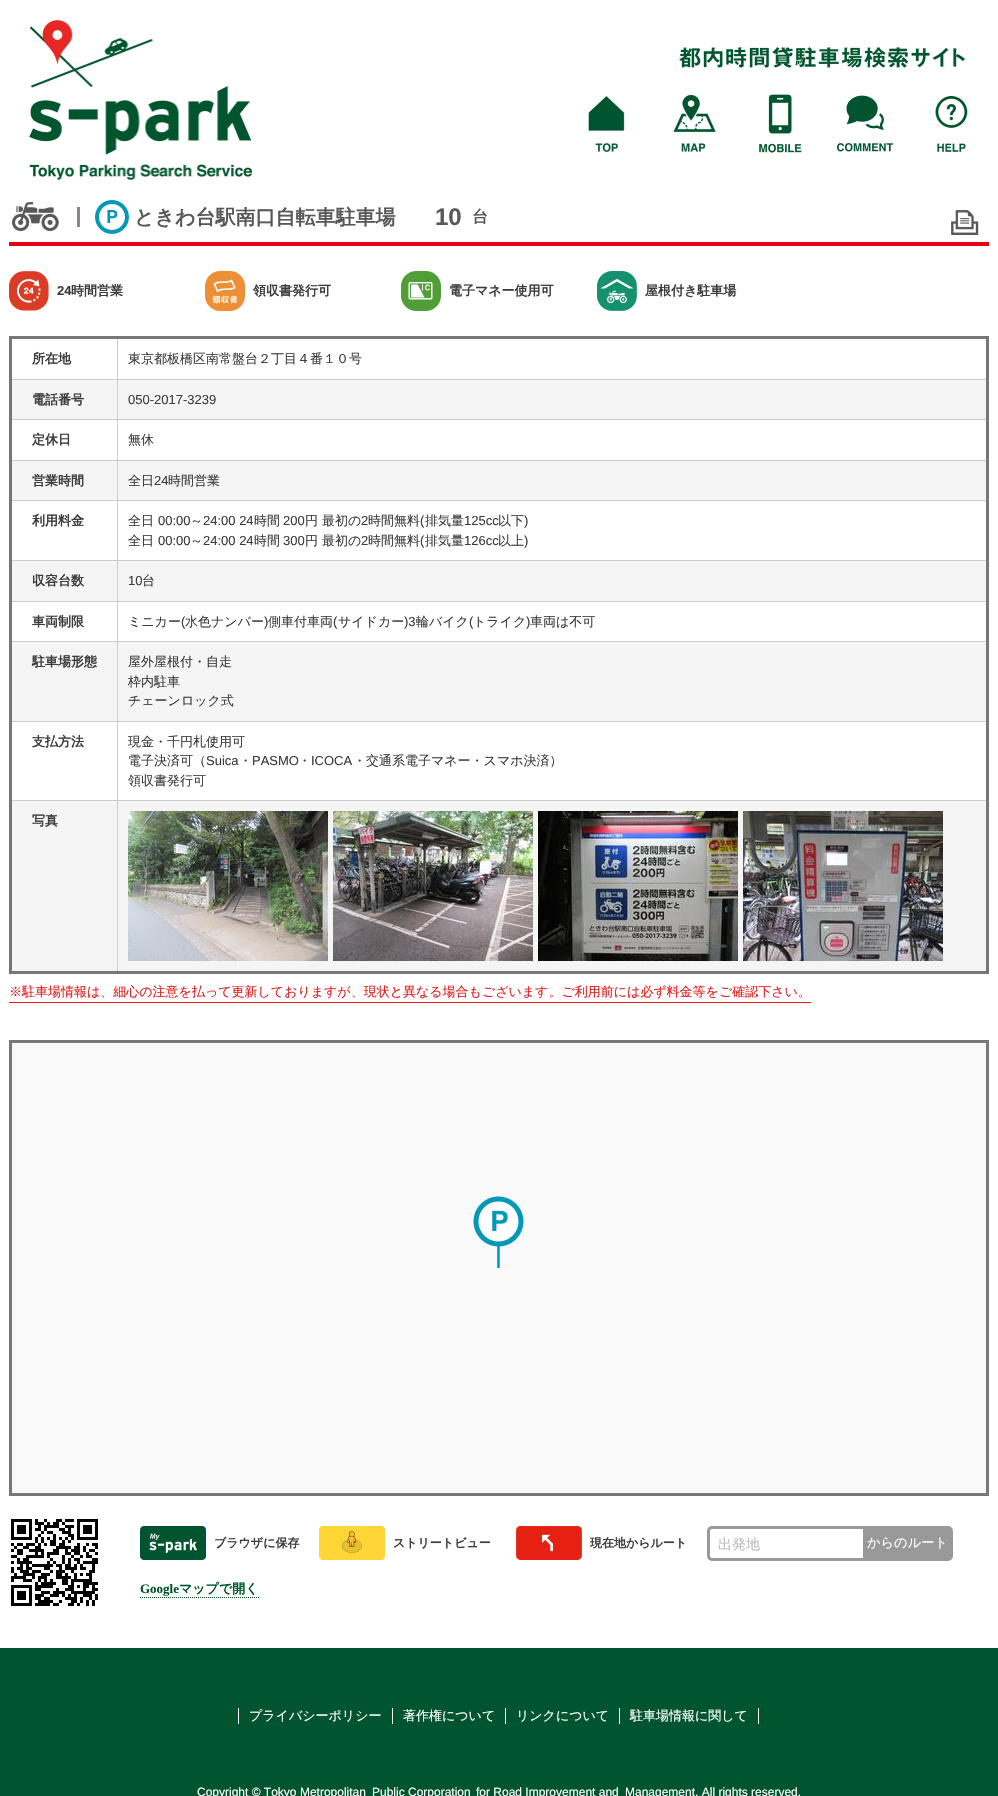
void draw(SkCanvas* canvas) {
    SkPaint paint;
    paint.setAntiAlias(true);
    canvas->clear(0xFFFFFFFF);
    canvas->drawImageRect(SkImages::DeferredFromEncodedData(SkData::MakeFromFileName("img1.png")), SkRect::MakeXYWH(29, 20, 223, 160), SkSamplingOptions());
    canvas->drawImageRect(SkImages::DeferredFromEncodedData(SkData::MakeFromFileName("img2.png")), SkRect::MakeXYWH(679, 47, 286, 21), SkSamplingOptions());
    canvas->drawImageRect(SkImages::DeferredFromEncodedData(SkData::MakeFromFileName("img3.png")), SkRect::MakeXYWH(588, 96, 37, 56), SkSamplingOptions());
    canvas->drawImageRect(SkImages::DeferredFromEncodedData(SkData::MakeFromFileName("img4.png")), SkRect::MakeXYWH(673, 94, 43, 58), SkSamplingOptions());
    canvas->drawImageRect(SkImages::DeferredFromEncodedData(SkData::MakeFromFileName("img5.png")), SkRect::MakeXYWH(759, 94, 43, 59), SkSamplingOptions());
    canvas->drawImageRect(SkImages::DeferredFromEncodedData(SkData::MakeFromFileName("img6.png")), SkRect::MakeXYWH(837, 95, 56, 57), SkSamplingOptions());
    canvas->drawImageRect(SkImages::DeferredFromEncodedData(SkData::MakeFromFileName("img7.png")), SkRect::MakeXYWH(935, 96, 33, 56), SkSamplingOptions());
    paint.setColor(0xFFE60012);
    canvas->drawRect(SkRect::MakeXYWH(9, 242, 980, 4), paint);
    canvas->drawImageRect(SkImages::DeferredFromEncodedData(SkData::MakeFromFileName("img8.png")), SkRect::MakeXYWH(12, 202, 47, 30), SkSamplingOptions());
    paint.setColor(0xFF888888);
    canvas->drawRect(SkRect::MakeXYWH(77, 207, 3, 20), paint);
    canvas->drawImageRect(SkImages::DeferredFromEncodedData(SkData::MakeFromFileName("img9.png")), SkRect::MakeXYWH(95, 200, 34, 34), SkSamplingOptions());
    SkFont font1(fontMgr->matchFamilyStyle("WenQuanYi Zen Hei", SkFontStyle::Bold()), 20);
    font1.setSubpixel(true);
    paint.setColor(0xFF595757);
    canvas->drawString("ときわ台駅南口自転車駐車場", 134, 224, font1, paint);
    SkFont font2(fontMgr->matchFamilyStyle("Liberation Sans", SkFontStyle::Bold()), 24);
    font2.setSubpixel(true);
    canvas->drawString("10", 435, 225, font2, paint);
    SkFont font3(fontMgr->matchFamilyStyle("WenQuanYi Zen Hei", SkFontStyle::Bold()), 16);
    font3.setSubpixel(true);
    canvas->drawString("台", 472, 222, font3, paint);
    canvas->drawImageRect(SkImages::DeferredFromEncodedData(SkData::MakeFromFileName("img10.png")), SkRect::MakeXYWH(951, 210, 28, 25), SkSamplingOptions());
    canvas->drawImageRect(SkImages::DeferredFromEncodedData(SkData::MakeFromFileName("img11.png")), SkRect::MakeXYWH(9, 271, 40, 40), SkSamplingOptions());
    SkFont font4(fontMgr->matchFamilyStyle("Liberation Sans", SkFontStyle::Bold()), 13);
    font4.setSubpixel(true);
    paint.setColor(0xFF3C3C3C);
    canvas->drawString("24", 57, 295, font4, paint);
    SkFont font5(fontMgr->matchFamilyStyle("WenQuanYi Zen Hei", SkFontStyle::Bold()), 13);
    font5.setSubpixel(true);
    canvas->drawString("時間営業", 71, 295, font5, paint);
    canvas->drawImageRect(SkImages::DeferredFromEncodedData(SkData::MakeFromFileName("img12.png")), SkRect::MakeXYWH(205, 271, 40, 40), SkSamplingOptions());
    canvas->drawString("領収書発行可", 253, 295, font5, paint);
    canvas->drawImageRect(SkImages::DeferredFromEncodedData(SkData::MakeFromFileName("img13.png")), SkRect::MakeXYWH(401, 271, 40, 40), SkSamplingOptions());
    canvas->drawString("電子マネー使用可", 449, 295, font5, paint);
    canvas->drawImageRect(SkImages::DeferredFromEncodedData(SkData::MakeFromFileName("img14.png")), SkRect::MakeXYWH(597, 271, 40, 40), SkSamplingOptions());
    canvas->drawString("屋根付き駐車場", 645, 295, font5, paint);
    paint.setColor(0xFFCCCCCC);
    canvas->drawRect(SkRect::MakeXYWH(117, 379, 871, 1), paint);
    paint.setColor(0xFFF5F5F5);
    canvas->drawRect(SkRect::MakeXYWH(12, 380, 974, 39), paint);
    paint.setColor(0xFFCCCCCC);
    canvas->drawRect(SkRect::MakeXYWH(117, 419, 871, 1), paint);
    canvas->drawRect(SkRect::MakeXYWH(117, 460, 871, 1), paint);
    paint.setColor(0xFFF5F5F5);
    canvas->drawRect(SkRect::MakeXYWH(12, 461, 974, 39), paint);
    paint.setColor(0xFFCCCCCC);
    canvas->drawRect(SkRect::MakeXYWH(117, 500, 871, 1), paint);
    canvas->drawRect(SkRect::MakeXYWH(117, 560, 871, 1), paint);
    paint.setColor(0xFFF5F5F5);
    canvas->drawRect(SkRect::MakeXYWH(12, 561, 974, 40), paint);
    paint.setColor(0xFFCCCCCC);
    canvas->drawRect(SkRect::MakeXYWH(117, 601, 871, 1), paint);
    canvas->drawRect(SkRect::MakeXYWH(117, 641, 871, 1), paint);
    paint.setColor(0xFFF5F5F5);
    canvas->drawRect(SkRect::MakeXYWH(12, 642, 974, 79), paint);
    paint.setColor(0xFFCCCCCC);
    canvas->drawRect(SkRect::MakeXYWH(117, 721, 871, 1), paint);
    canvas->drawRect(SkRect::MakeXYWH(117, 800, 871, 1), paint);
    paint.setColor(0xFFF5F5F5);
    canvas->drawRect(SkRect::MakeXYWH(12, 801, 974, 170), paint);
    paint.setColor(0xFFCCCCCC);
    canvas->drawRect(SkRect::MakeXYWH(117, 800, 1, 173), paint);
    canvas->drawRect(SkRect::MakeXYWH(10, 800, 108, 1), paint);
    canvas->drawRect(SkRect::MakeXYWH(117, 721, 1, 80), paint);
    canvas->drawRect(SkRect::MakeXYWH(10, 721, 108, 1), paint);
    canvas->drawRect(SkRect::MakeXYWH(117, 641, 1, 81), paint);
    canvas->drawRect(SkRect::MakeXYWH(10, 641, 108, 1), paint);
    canvas->drawRect(SkRect::MakeXYWH(117, 601, 1, 41), paint);
    canvas->drawRect(SkRect::MakeXYWH(10, 601, 108, 1), paint);
    canvas->drawRect(SkRect::MakeXYWH(117, 560, 1, 42), paint);
    canvas->drawRect(SkRect::MakeXYWH(10, 560, 108, 1), paint);
    canvas->drawRect(SkRect::MakeXYWH(117, 500, 1, 61), paint);
    canvas->drawRect(SkRect::MakeXYWH(10, 500, 108, 1), paint);
    canvas->drawRect(SkRect::MakeXYWH(117, 460, 1, 41), paint);
    canvas->drawRect(SkRect::MakeXYWH(10, 460, 108, 1), paint);
    canvas->drawRect(SkRect::MakeXYWH(117, 419, 1, 42), paint);
    canvas->drawRect(SkRect::MakeXYWH(10, 419, 108, 1), paint);
    canvas->drawRect(SkRect::MakeXYWH(117, 379, 1, 41), paint);
    canvas->drawRect(SkRect::MakeXYWH(10, 379, 108, 1), paint);
    canvas->drawRect(SkRect::MakeXYWH(117, 337, 1, 43), paint);
    paint.setColor(0xFF777777);
    canvas->drawRect(SkRect::MakeXYWH(9, 336, 980, 3), paint);
    canvas->drawRect(SkRect::MakeXYWH(986, 336, 3, 638), paint);
    canvas->drawRect(SkRect::MakeXYWH(9, 971, 980, 3), paint);
    canvas->drawRect(SkRect::MakeXYWH(9, 336, 3, 638), paint);
    paint.setColor(0xFF3C3C3C);
    canvas->drawString("所在地", 32, 363, font5, paint);
    SkFont font6(fontMgr->matchFamilyStyle("WenQuanYi Zen Hei", SkFontStyle(500, SkFontStyle::kNormal_Width, SkFontStyle::kUpright_Slant)), 13);
    font6.setSubpixel(true);
    canvas->drawString("東京都板橋区南常盤台２丁目４番１０号", 128, 363, font6, paint);
    canvas->drawString("電話番号", 32, 404, font5, paint);
    SkFont font7(fontMgr->matchFamilyStyle("Liberation Sans", SkFontStyle::Normal()), 13);
    font7.setSubpixel(true);
    canvas->drawString("050-2017-3239", 128, 404, font7, paint);
    canvas->drawString("定休日", 32, 444, font5, paint);
    canvas->drawString("無休", 128, 444, font6, paint);
    canvas->drawString("営業時間", 32, 485, font5, paint);
    canvas->drawString("全日", 128, 485, font6, paint);
    canvas->drawString("24", 154, 485, font7, paint);
    canvas->drawString("時間営業", 168, 485, font6, paint);
    canvas->drawString("利用料金", 32, 525, font5, paint);
    canvas->drawString("全日", 128, 525, font6, paint);
    canvas->drawString("00:00", 158, 525, font7, paint);
    canvas->drawString("～", 190, 525, font6, paint);
    canvas->drawString("24:00 24", 203, 525, font7, paint);
    canvas->drawString("時間", 254, 525, font6, paint);
    canvas->drawString("200", 283, 525, font7, paint);
    canvas->drawString("円 最初の", 305, 525, font6, paint);
    canvas->drawString("2", 361, 525, font7, paint);
    canvas->drawString("時間無料", 368, 525, font6, paint);
    canvas->drawString("(", 420, 525, font7, paint);
    canvas->drawString("排気量", 425, 525, font6, paint);
    canvas->drawString("125cc", 464, 525, font7, paint);
    canvas->drawString("以下", 498, 525, font6, paint);
    canvas->drawString(")", 524, 525, font7, paint);
    canvas->drawString("全日", 128, 545, font6, paint);
    canvas->drawString("00:00", 158, 545, font7, paint);
    canvas->drawString("～", 190, 545, font6, paint);
    canvas->drawString("24:00 24", 203, 545, font7, paint);
    canvas->drawString("時間", 254, 545, font6, paint);
    canvas->drawString("300", 283, 545, font7, paint);
    canvas->drawString("円 最初の", 305, 545, font6, paint);
    canvas->drawString("2", 361, 545, font7, paint);
    canvas->drawString("時間無料", 368, 545, font6, paint);
    canvas->drawString("(", 420, 545, font7, paint);
    canvas->drawString("排気量", 425, 545, font6, paint);
    canvas->drawString("126cc", 464, 545, font7, paint);
    canvas->drawString("以上", 498, 545, font6, paint);
    canvas->drawString(")", 524, 545, font7, paint);
    canvas->drawString("収容台数", 32, 585, font5, paint);
    canvas->drawString("10", 128, 585, font7, paint);
    canvas->drawString("台", 142, 585, font6, paint);
    canvas->drawString("車両制限", 32, 626, font5, paint);
    canvas->drawString("ミニカー", 128, 626, font6, paint);
    canvas->drawString("(", 181, 626, font7, paint);
    canvas->drawString("水色ナンバー", 185, 626, font6, paint);
    canvas->drawString(")", 264, 626, font7, paint);
    canvas->drawString("側車付車両", 268, 626, font6, paint);
    canvas->drawString("(", 333, 626, font7, paint);
    canvas->drawString("サイドカー", 338, 626, font6, paint);
    canvas->drawString(")3", 404, 626, font7, paint);
    canvas->drawString("輪バイク", 416, 626, font6, paint);
    canvas->drawString("(", 469, 626, font7, paint);
    canvas->drawString("トライク", 473, 626, font6, paint);
    canvas->drawString(")", 526, 626, font7, paint);
    canvas->drawString("車両は不可", 530, 626, font6, paint);
    canvas->drawString("駐車場形態", 32, 666, font5, paint);
    canvas->drawString("屋外屋根付・自走", 128, 666, font6, paint);
    canvas->drawString("枠内駐車", 128, 686, font6, paint);
    canvas->drawString("チェーンロック式", 128, 705, font6, paint);
    canvas->drawString("支払方法", 32, 746, font5, paint);
    canvas->drawString("現金・千円札使用可", 128, 746, font6, paint);
    canvas->drawString("電子決済可（", 128, 765, font6, paint);
    canvas->drawString("Suica", 206, 765, font7, paint);
    canvas->drawString("・", 239, 765, font6, paint);
    canvas->drawString("PASMO", 252, 765, font7, paint);
    canvas->drawString("・", 298, 765, font6, paint);
    canvas->drawString("ICOCA", 311, 765, font7, paint);
    canvas->drawString("・交通系電子マネー・スマホ決済）", 353, 765, font6, paint);
    canvas->drawString("領収書発行可", 128, 785, font6, paint);
    canvas->drawString("写真", 32, 825, font5, paint);
    canvas->drawImageRect(SkImages::DeferredFromEncodedData(SkData::MakeFromFileName("img15.png")), SkRect::MakeXYWH(128, 811, 200, 150), SkSamplingOptions());
    canvas->drawImageRect(SkImages::DeferredFromEncodedData(SkData::MakeFromFileName("img16.png")), SkRect::MakeXYWH(333, 811, 200, 150), SkSamplingOptions());
    canvas->drawImageRect(SkImages::DeferredFromEncodedData(SkData::MakeFromFileName("img17.png")), SkRect::MakeXYWH(538, 811, 200, 150), SkSamplingOptions());
    canvas->drawImageRect(SkImages::DeferredFromEncodedData(SkData::MakeFromFileName("img18.png")), SkRect::MakeXYWH(743, 811, 200, 150), SkSamplingOptions());
    paint.setColor(0xFFE51D1D);
    canvas->drawString("※駐車場情報は、細心の注意を払って更新しておりますが、現状と異なる場合もございます。ご利用前には必ず料金等をご確認下さい。", 9, 996, font6, paint);
    canvas->drawRect(SkRect::MakeXYWH(9, 1002, 802, 1), paint);
    paint.setStyle(SkPaint::kStroke_Style);
    paint.setStrokeWidth(3);
    paint.setColor(0xFF777777);
    canvas->drawRect(SkRect::MakeXYWH(10.5f, 1041.5f, 977, 453), paint);
    paint.setStyle(SkPaint::kFill_Style);
    paint.setColor(0xFFF9F9F9);
    canvas->drawRect(SkRect::MakeXYWH(12, 1043, 974, 450), paint);
    canvas->drawImageRect(SkImages::DeferredFromEncodedData(SkData::MakeFromFileName("img19.png")), SkRect::MakeXYWH(473, 1196, 51, 72), SkSamplingOptions());
    canvas->drawImageRect(SkImages::DeferredFromEncodedData(SkData::MakeFromFileName("img20.png")), SkRect::MakeXYWH(11, 1519, 87, 87), SkSamplingOptions());
    canvas->drawImageRect(SkImages::DeferredFromEncodedData(SkData::MakeFromFileName("img21.png")), SkRect::MakeXYWH(140, 1526, 66, 34), SkSamplingOptions());
    SkFont font8(fontMgr->matchFamilyStyle("WenQuanYi Zen Hei", SkFontStyle::Bold()), 12);
    font8.setSubpixel(true);
    paint.setColor(0xFF3C3C3C);
    canvas->drawString("ブラウザに保存", 214, 1547, font8, paint);
    canvas->drawImageRect(SkImages::DeferredFromEncodedData(SkData::MakeFromFileName("img22.png")), SkRect::MakeXYWH(319, 1526, 66, 34), SkSamplingOptions());
    canvas->drawString("ストリートビュー", 393, 1547, font8, paint);
    canvas->drawImageRect(SkImages::DeferredFromEncodedData(SkData::MakeFromFileName("img23.png")), SkRect::MakeXYWH(516, 1526, 66, 34), SkSamplingOptions());
    canvas->drawString("現在地からルート", 590, 1547, font8, paint);
    paint.setStyle(SkPaint::kStroke_Style);
    paint.setColor(0xFF999999);
    canvas->drawRoundRect(SkRect::MakeXYWH(708.5f, 1527.5f, 243, 32), 3.5f, 3.5f, paint);
    SkFont font9(fontMgr->matchFamilyStyle("WenQuanYi Zen Hei", SkFontStyle(500, SkFontStyle::kNormal_Width, SkFontStyle::kUpright_Slant)), 14);
    font9.setSubpixel(true);
    paint.setStyle(SkPaint::kFill_Style);
    paint.setColor(0xFFBBBBBB);
    canvas->drawString("出発地", 718, 1549, font9, paint);
    paint.setColor(0xFF999999);
    canvas->drawPath(SkPathBuilder().moveTo(863, 1526).lineTo(943, 1526).cubicTo(948.5f, 1526, 953, 1530.5f, 953, 1536).lineTo(953, 1550).cubicTo(953, 1555.5f, 948.5f, 1560, 943, 1560).lineTo(863, 1560).close().detach(), paint);
    SkFont font10(fontMgr->matchFamilyStyle("WenQuanYi Zen Hei", SkFontStyle(500, SkFontStyle::kNormal_Width, SkFontStyle::kUpright_Slant)), 13.25f);
    font10.setSubpixel(true);
    paint.setColor(0xFFFFFFFF);
    canvas->drawString("からのルート", 867, 1547, font10, paint);
    paint.setStyle(SkPaint::kStroke_Style);
    paint.setStrokeWidth(1);
    paint.setColor(0xFF00552E);
    paint.setPathEffect(SkDashPathEffect::Make({{1, 1}}, 0));
    canvas->drawPath(SkPathBuilder().moveTo(140, 1597.5f).lineTo(259, 1597.5f).detach(), paint);
    paint.setPathEffect(nullptr);
    SkFont font11(fontMgr->matchFamilyStyle("Liberation Serif", SkFontStyle::Bold()), 13);
    font11.setSubpixel(true);
    paint.setStyle(SkPaint::kFill_Style);
    canvas->drawString("Google", 140, 1593, font11, paint);
    canvas->drawString("マップで開く", 179, 1593, font5, paint);
    canvas->drawRect(SkRect::MakeXYWH(0, 1648, 998, 148), paint);
    paint.setColor(0xFFFFFFFF);
    canvas->drawRect(SkRect::MakeXYWH(392, 1708, 1, 16), paint);
    canvas->drawRect(SkRect::MakeXYWH(238, 1708, 1, 16), paint);
    canvas->drawString("プライバシーポリシー", 249, 1720, font6, paint);
    canvas->drawRect(SkRect::MakeXYWH(505, 1708, 1, 16), paint);
    canvas->drawString("著作権について", 403, 1720, font6, paint);
    canvas->drawRect(SkRect::MakeXYWH(619, 1708, 1, 16), paint);
    canvas->drawString("リンクについて", 516, 1720, font6, paint);
    canvas->drawRect(SkRect::MakeXYWH(758, 1708, 1, 16), paint);
    canvas->drawString("駐車場情報に関して", 630, 1720, font6, paint);
    SkFont font12(fontMgr->matchFamilyStyle("Liberation Sans", SkFontStyle::Normal()), 12);
    font12.setSubpixel(true);
    canvas->drawString("Copyright © Tokyo Metropolitan", 197, 1796, font12, paint);
    canvas->drawString("Public Corporation", 372, 1796, font12, paint);
    canvas->drawString("for Road Improvement and", 476, 1796, font12, paint);
    canvas->drawString("Management, All rights reserved.", 625, 1796, font12, paint);
}
